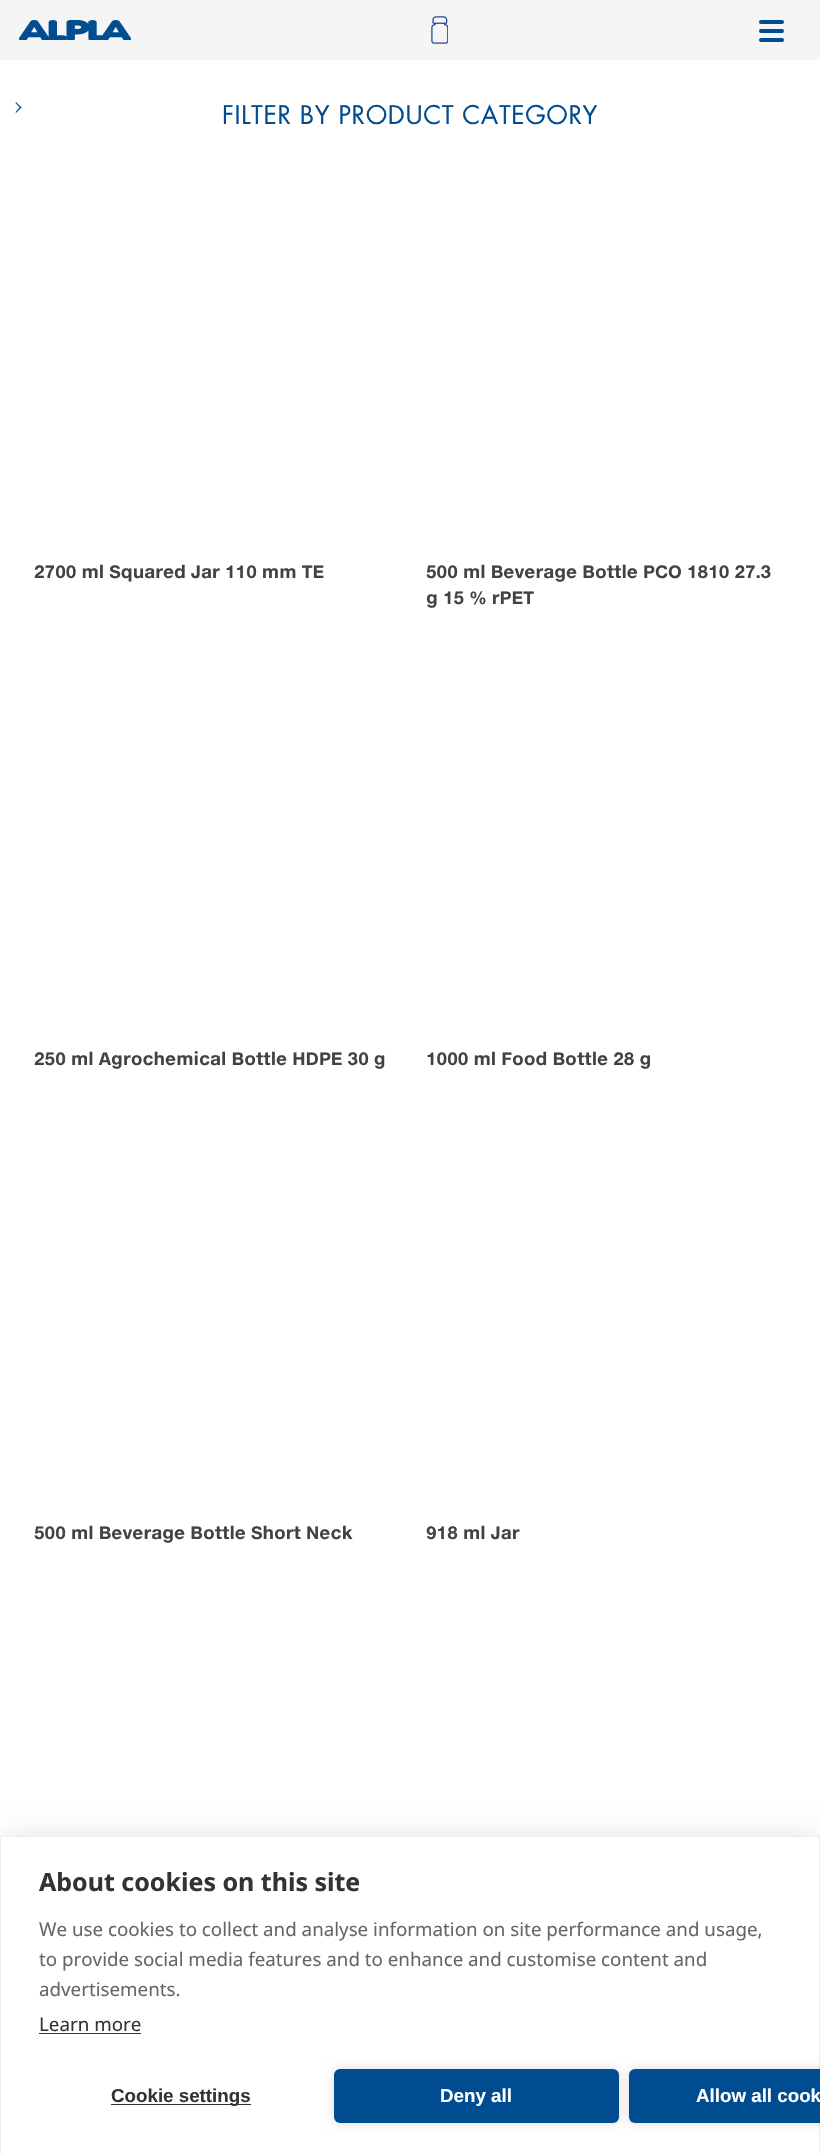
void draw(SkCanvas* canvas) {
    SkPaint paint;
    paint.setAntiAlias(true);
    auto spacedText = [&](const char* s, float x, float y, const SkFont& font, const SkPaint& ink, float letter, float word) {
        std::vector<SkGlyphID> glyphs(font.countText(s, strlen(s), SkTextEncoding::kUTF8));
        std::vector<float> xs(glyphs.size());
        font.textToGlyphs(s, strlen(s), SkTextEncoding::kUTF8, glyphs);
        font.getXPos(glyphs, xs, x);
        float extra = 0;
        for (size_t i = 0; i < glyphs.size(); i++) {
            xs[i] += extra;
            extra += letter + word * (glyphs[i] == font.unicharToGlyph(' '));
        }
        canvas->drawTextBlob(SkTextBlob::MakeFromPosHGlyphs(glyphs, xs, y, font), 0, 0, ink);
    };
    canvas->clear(0xFFFFFFFF);
    paint.setColor(0xFFF5F5F5);
    canvas->drawRect(SkRect::MakeXYWH(0, 0, 820, 60), paint);
    canvas->drawImageRect(SkImages::DeferredFromEncodedData(SkData::MakeFromFileName("img1.png")), SkRect::MakeXYWH(19, 20, 112, 20), SkSamplingOptions());
    canvas->drawImageRect(SkImages::DeferredFromEncodedData(SkData::MakeFromFileName("img2.png")), SkRect::MakeXYWH(431, 16, 17, 28), SkSamplingOptions());
    paint.setColor(0xFF004C90);
    canvas->drawRoundRect(SkRect::MakeXYWH(759, 29, 25, 4), 2, 2, paint);
    canvas->drawRoundRect(SkRect::MakeXYWH(759, 20, 25, 4), 2, 2, paint);
    canvas->drawRoundRect(SkRect::MakeXYWH(759, 38, 25, 4), 2, 2, paint);
    canvas->drawPath(SkPathBuilder().moveTo(21.5f, 107.5f).lineTo(16, 113).lineTo(15.5f, 112).lineTo(20.5f, 106.5f).close().detach(), paint);
    canvas->drawPath(SkPathBuilder().moveTo(21.5f, 107.5f).lineTo(20.5f, 108.5f).lineTo(15.5f, 103).lineTo(16, 102).close().detach(), paint);
    SkFont font1(fontMgr->matchFamilyStyle("Futura", SkFontStyle::Normal()), 25);
    font1.setSubpixel(true);
    spacedText("FILTER BY PRODUCT CATEGORY", 222, 124, font1, paint, 0.6f, 0);
    SkFont font2(fontMgr->matchFamilyStyle("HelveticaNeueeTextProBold", SkFontStyle::Normal()), 17.5f);
    font2.setSubpixel(true);
    paint.setColor(0xFF424242);
    canvas->drawString("2700 ml Squared Jar 110 mm TE", 34, 578, font2, paint);
    canvas->drawString("500 ml Beverage Bottle PCO 1810 27.3", 426, 578, font2, paint);
    canvas->drawString("g 15 % rPET", 426, 604, font2, paint);
    canvas->drawString("250 ml Agrochemical Bottle HDPE 30 g", 34, 1065, font2, paint);
    canvas->drawString("1000 ml Food Bottle 28 g", 426, 1065, font2, paint);
    canvas->drawString("500 ml Beverage Bottle Short Neck", 34, 1539, font2, paint);
    canvas->drawString("918 ml Jar", 426, 1539, font2, paint);
    paint.setColor(0x1A000000);
    paint.setMaskFilter(SkMaskFilter::MakeBlur(kNormal_SkBlurStyle, 12.5f));
    canvas->drawRect(SkRect::MakeXYWH(0, 1836, 820, 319), paint);
    paint.setMaskFilter(nullptr);
    paint.setColor(0xFFFFFFFF);
    canvas->drawRect(SkRect::MakeXYWH(0.5f, 1836.5f, 819, 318), paint);
    paint.setStyle(SkPaint::kStroke_Style);
    paint.setStrokeWidth(1);
    paint.setColor(0xFFEEEEEE);
    canvas->drawRect(SkRect::MakeXYWH(0.5f, 1836.5f, 819, 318), paint);
    SkFont font3(fontMgr->matchFamilyStyle("Noto Sans", SkFontStyle::Bold()), 25);
    font3.setSubpixel(true);
    paint.setStyle(SkPaint::kFill_Style);
    paint.setColor(0xFF333333);
    canvas->drawString("About cookies on this site", 39, 1891, font3, paint);
    SkFont font4(fontMgr->matchFamilyStyle("Noto Sans", SkFontStyle::Normal()), 18.75f);
    font4.setSubpixel(true);
    paint.setColor(0xFF666666);
    canvas->drawString("We use cookies to collect and analyse information on site performance and usage,", 39, 1936, font4, paint);
    canvas->drawString("to provide social media features and to enhance and customise content and", 39, 1966, font4, paint);
    canvas->drawString("advertisements.", 39, 1996, font4, paint);
    paint.setColor(0xFF333333);
    canvas->drawString("Learn more", 39, 2031, font4, paint);
    canvas->drawRect(SkRect::MakeXYWH(39, 2033, 102, 1), paint);
    canvas->drawRect(SkRect::MakeXYWH(111, 2104, 140, 1), paint);
    SkFont font5(fontMgr->matchFamilyStyle("Liberation Sans", SkFontStyle::Bold()), 18.75f);
    font5.setSubpixel(true);
    canvas->drawString("Cookie settings", 111, 2102, font5, paint);
    paint.setColor(0x1F000000);
    paint.setMaskFilter(SkMaskFilter::MakeBlur(kNormal_SkBlurStyle, 6));
    canvas->drawRoundRect(SkRect::MakeXYWH(334, 2069, 285, 54), 6, 6, paint);
    paint.setMaskFilter(nullptr);
    paint.setColor(0xFF004C90);
    canvas->drawRoundRect(SkRect::MakeXYWH(334, 2069, 285, 54), 6, 6, paint);
    paint.setColor(0xFFFFFFFF);
    canvas->drawString("Deny all", 440, 2102, font5, paint);
    paint.setColor(0x1F000000);
    paint.setMaskFilter(SkMaskFilter::MakeBlur(kNormal_SkBlurStyle, 6));
    canvas->drawRoundRect(SkRect::MakeXYWH(629, 2069, 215, 54), 6, 6, paint);
    paint.setMaskFilter(nullptr);
    paint.setColor(0xFF004C90);
    canvas->drawRoundRect(SkRect::MakeXYWH(629, 2069, 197, 54), 6, 6, paint);
    paint.setColor(0xFFFFFFFF);
    canvas->drawString("Allow all cook", 696, 2102, font5, paint);
}
